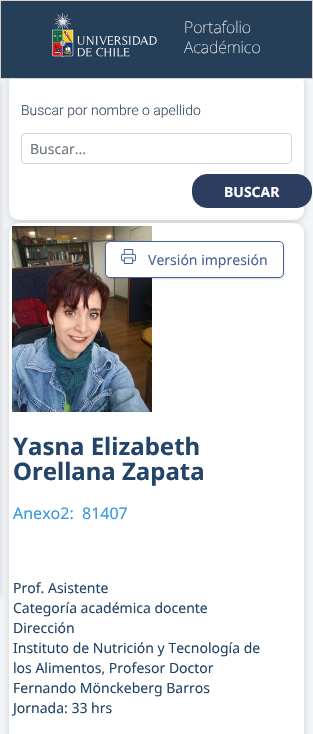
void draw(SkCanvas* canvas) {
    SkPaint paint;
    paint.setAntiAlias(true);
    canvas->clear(0xFFF3F6F9);
    paint.setColor(0x29000000);
    paint.setMaskFilter(SkMaskFilter::MakeBlur(kNormal_SkBlurStyle, 3));
    canvas->drawRoundRect(SkRect::MakeXYWH(9, 74, 295, 147), 10, 10, paint);
    paint.setMaskFilter(nullptr);
    paint.setColor(0xFFFFFFFF);
    canvas->drawRoundRect(SkRect::MakeXYWH(9, 73, 295, 147), 10, 10, paint);
    paint.setColor(0xFF263F58);
    canvas->drawRect(SkRect::MakeXYWH(0.5f, 0.5f, 312, 78), paint);
    paint.setStyle(SkPaint::kStroke_Style);
    paint.setStrokeWidth(1);
    paint.setColor(0xFFD6D2D2);
    canvas->drawRect(SkRect::MakeXYWH(0.5f, 0.5f, 312, 78), paint);
    canvas->drawImageRect(SkImages::DeferredFromEncodedData(SkData::MakeFromFileName("img1.png")), SkRect::MakeXYWH(52, 13, 105, 44), SkSamplingOptions());
    SkFont font1(fontMgr->matchFamilyStyle("Noto Sans", SkFontStyle(100, SkFontStyle::kNormal_Width, SkFontStyle::kUpright_Slant)), 16);
    font1.setSubpixel(true);
    paint.setStyle(SkPaint::kFill_Style);
    paint.setColor(0xFFFFFFFF);
    canvas->drawString("Portafolio", 184, 33, font1, paint);
    canvas->drawString("Académico", 184, 53, font1, paint);
    paint.setColor(0x29000000);
    paint.setMaskFilter(SkMaskFilter::MakeBlur(kNormal_SkBlurStyle, 3));
    canvas->drawRoundRect(SkRect::MakeXYWH(9, 224, 295, 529), 10, 10, paint);
    paint.setMaskFilter(nullptr);
    paint.setColor(0xFFFFFFFF);
    canvas->drawRoundRect(SkRect::MakeXYWH(9, 223, 295, 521), 10, 10, paint);
    paint.setColor(0x29000000);
    paint.setMaskFilter(SkMaskFilter::MakeBlur(kNormal_SkBlurStyle, 3));
    canvas->drawRect(SkRect::MakeXYWH(-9, 82, 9, 514), paint);
    paint.setMaskFilter(nullptr);
    SkFont font2(fontMgr->matchFamilyStyle("Roboto", SkFontStyle(300, SkFontStyle::kNormal_Width, SkFontStyle::kUpright_Slant)), 14);
    font2.setSubpixel(true);
    paint.setColor(0xFF34495E);
    canvas->drawString("Buscar por nombre o apellido", 21, 115, font2, paint);
    paint.setStyle(SkPaint::kStroke_Style);
    paint.setColor(0xFFCED4DA);
    canvas->drawRoundRect(SkRect::MakeXYWH(21.5f, 133.5f, 270, 30), 3.5f, 3.5f, paint);
    SkFont font3(fontMgr->matchFamilyStyle("Noto Sans", SkFontStyle::Normal()), 14);
    font3.setSubpixel(true);
    paint.setStyle(SkPaint::kFill_Style);
    paint.setColor(0xFF6C757D);
    canvas->drawString("Buscar...", 30, 154, font3, paint);
    paint.setColor(0xFF2C3D5F);
    canvas->drawRoundRect(SkRect::MakeXYWH(192.5f, 174.5f, 119, 33), 14.5f, 14.5f, paint);
    paint.setStyle(SkPaint::kStroke_Style);
    canvas->drawRoundRect(SkRect::MakeXYWH(192.5f, 174.5f, 119, 33), 14.5f, 14.5f, paint);
    SkFont font4(fontMgr->matchFamilyStyle("Noto Sans", SkFontStyle::Bold()), 14);
    font4.setSubpixel(true);
    paint.setStyle(SkPaint::kFill_Style);
    paint.setColor(0xFFFFFFFF);
    canvas->drawString("BUSCAR", 224, 197, font4, paint);
    canvas->drawImageRect(SkImages::DeferredFromEncodedData(SkData::MakeFromFileName("img2.png")), SkRect::MakeXYWH(12, 226, 140, 186), SkSamplingOptions());
    paint.setColor(0x29000000);
    paint.setMaskFilter(SkMaskFilter::MakeBlur(kNormal_SkBlurStyle, 1));
    canvas->drawRoundRect(SkRect::MakeXYWH(105, 242, 179, 37), 5, 5, paint);
    paint.setMaskFilter(nullptr);
    paint.setColor(0xFFFFFFFF);
    canvas->drawRoundRect(SkRect::MakeXYWH(105.5f, 241.5f, 178, 36), 4.5f, 4.5f, paint);
    paint.setStyle(SkPaint::kStroke_Style);
    paint.setColor(0xFF47629A);
    canvas->drawRoundRect(SkRect::MakeXYWH(105.5f, 241.5f, 178, 36), 4.5f, 4.5f, paint);
    canvas->drawImageRect(SkImages::DeferredFromEncodedData(SkData::MakeFromFileName("img3.png")), SkRect::MakeXYWH(121, 249, 15, 15), SkSamplingOptions());
    paint.setStyle(SkPaint::kFill_Style);
    canvas->drawString("Versión impresión", 148, 265, font3, paint);
    SkFont font5(fontMgr->matchFamilyStyle("Noto Sans", SkFontStyle::Bold()), 24);
    font5.setSubpixel(true);
    paint.setColor(0xFF234569);
    canvas->drawString("Yasna Elizabeth", 13, 455, font5, paint);
    canvas->drawString("Orellana Zapata", 13, 480, font5, paint);
    SkFont font6(fontMgr->matchFamilyStyle("Noto Sans", SkFontStyle::Normal()), 16);
    font6.setSubpixel(true);
    paint.setColor(0xFF3598DB);
    canvas->drawString("Anexo2:", 13, 519, font6, paint);
    canvas->drawString("81407", 82, 519, font6, paint);
    paint.setColor(0xFF234569);
    canvas->drawString("Prof. Asistente", 13, 593, font3, paint);
    canvas->drawString("Categoría académica docente", 13, 613, font3, paint);
    canvas->drawString("Dirección", 13, 633, font3, paint);
    canvas->drawString("Instituto de Nutrición y Tecnología de", 13, 653, font3, paint);
    canvas->drawString("los Alimentos, Profesor Doctor", 13, 673, font3, paint);
    canvas->drawString("Fernando Mönckeberg Barros", 13, 693, font3, paint);
    canvas->drawString("Jornada: 33 hrs", 13, 713, font3, paint);
}
